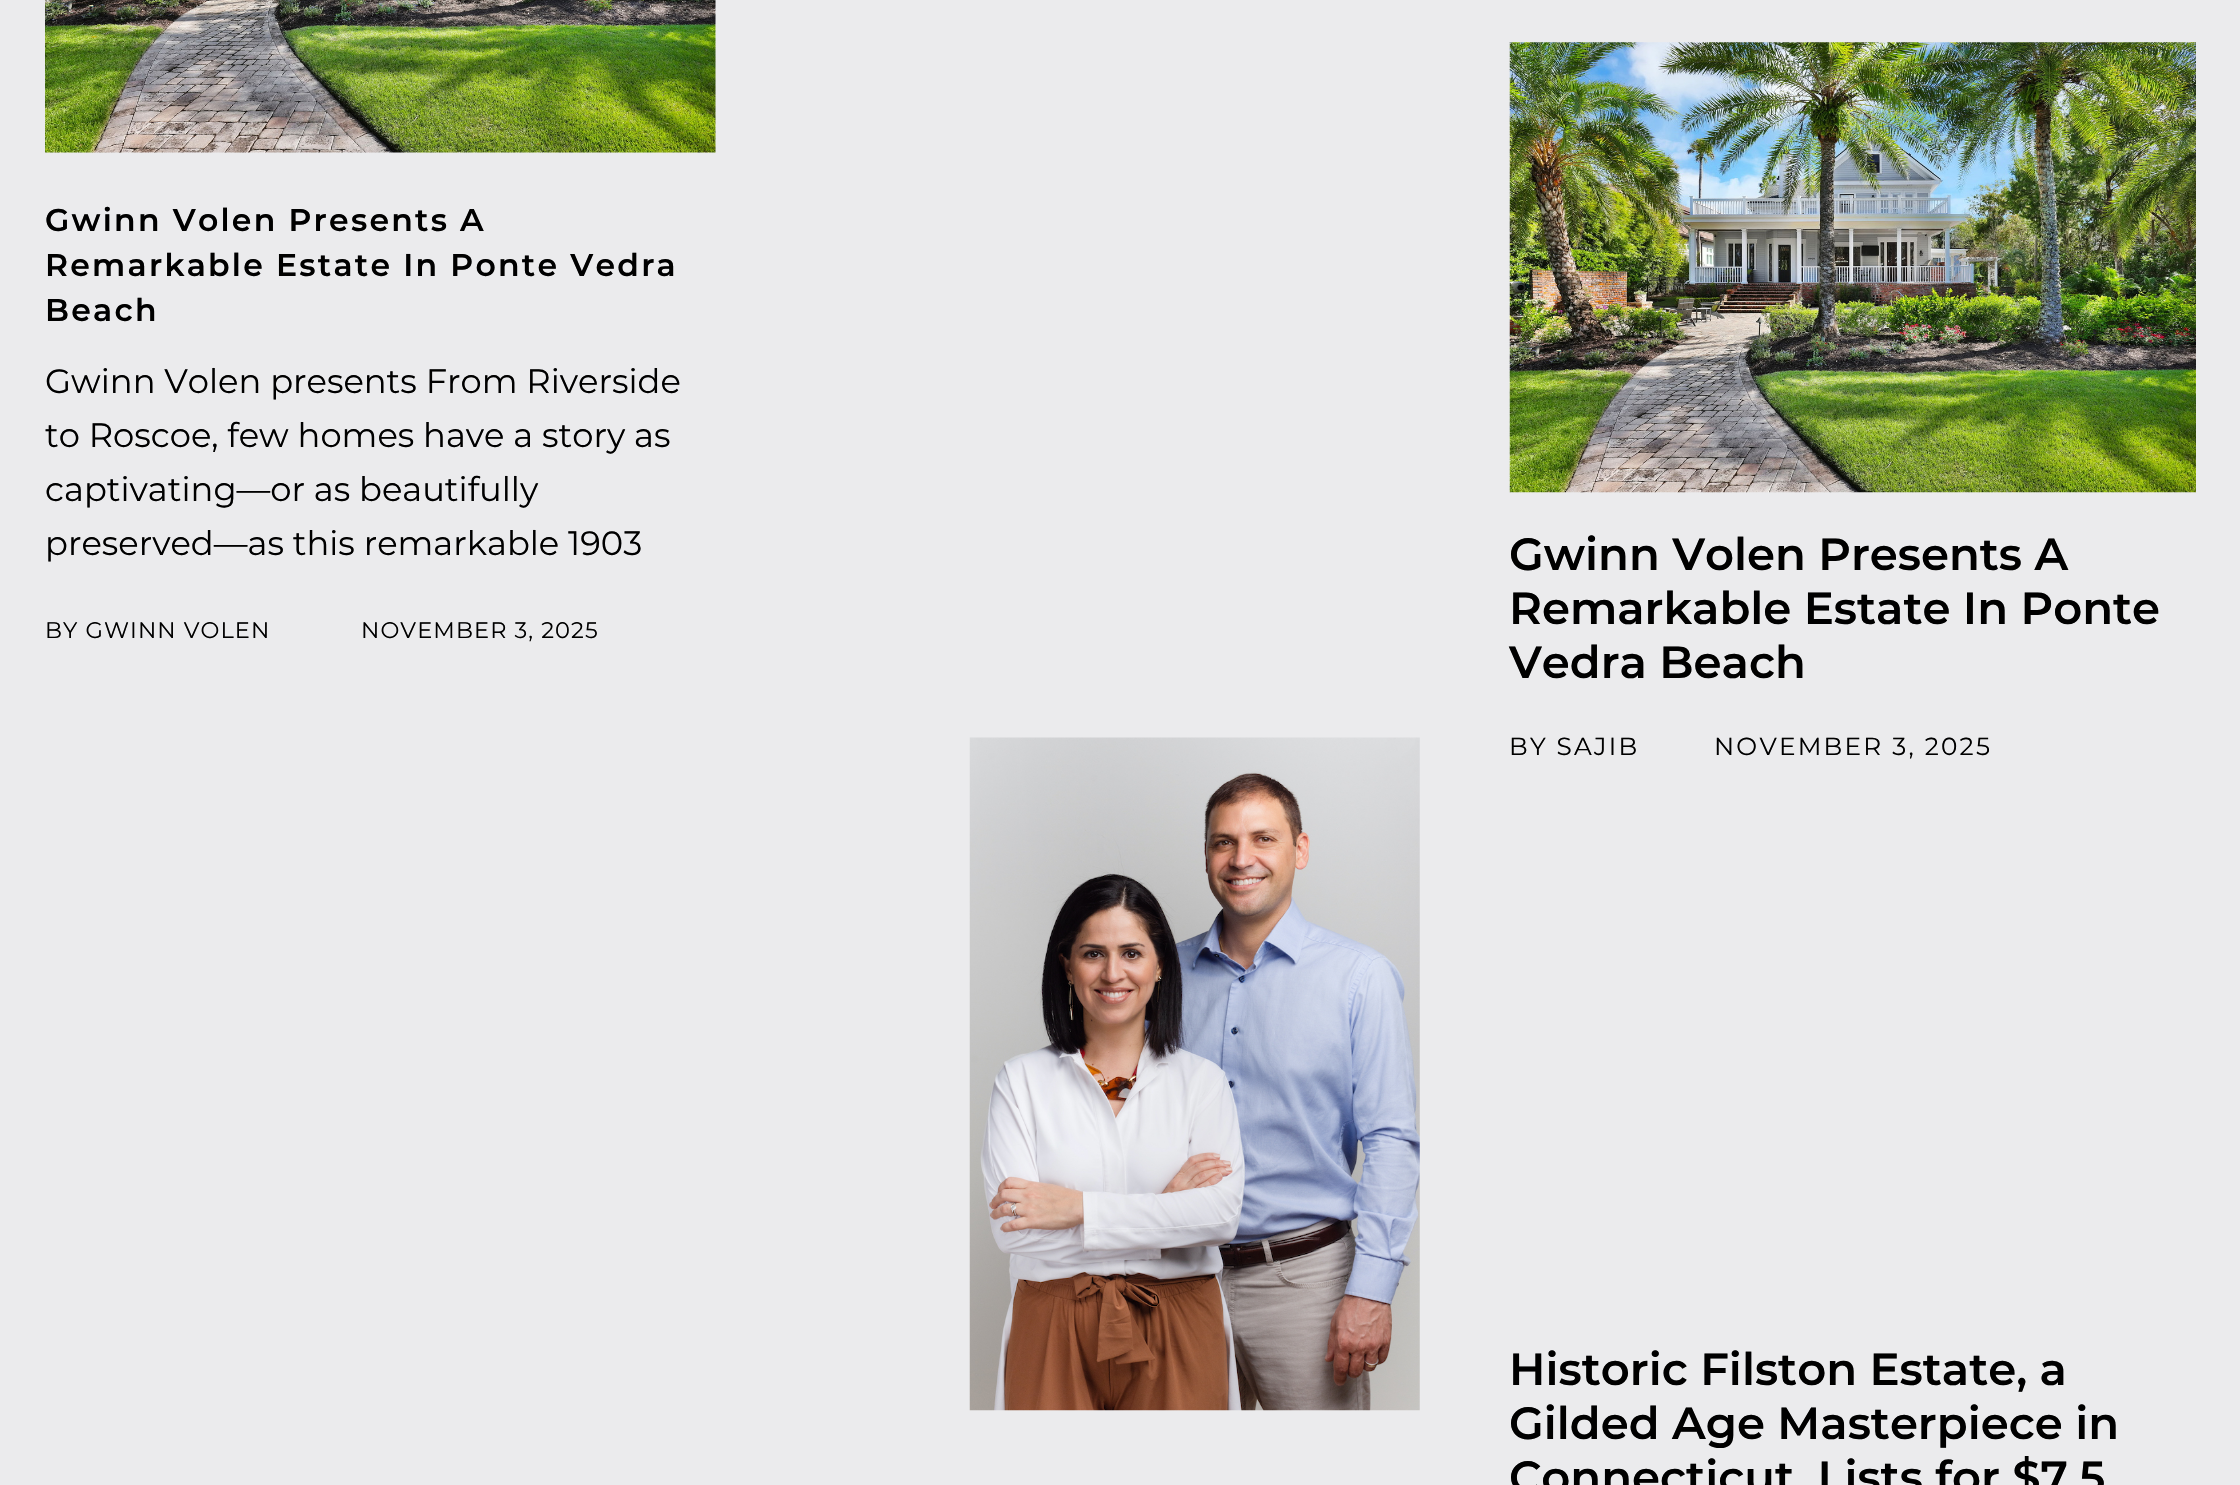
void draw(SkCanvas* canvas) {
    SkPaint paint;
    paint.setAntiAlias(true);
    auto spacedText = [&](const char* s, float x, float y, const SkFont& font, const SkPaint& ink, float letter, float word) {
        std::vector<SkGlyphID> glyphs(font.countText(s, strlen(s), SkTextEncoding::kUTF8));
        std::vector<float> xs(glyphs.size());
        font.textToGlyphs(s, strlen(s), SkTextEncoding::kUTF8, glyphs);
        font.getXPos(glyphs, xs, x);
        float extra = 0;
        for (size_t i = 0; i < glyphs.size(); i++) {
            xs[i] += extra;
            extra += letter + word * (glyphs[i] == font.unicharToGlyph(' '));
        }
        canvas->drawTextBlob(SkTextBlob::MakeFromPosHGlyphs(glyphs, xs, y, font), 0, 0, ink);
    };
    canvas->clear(0xFFEBEBED);
    canvas->drawImageRect(SkImages::DeferredFromEncodedData(SkData::MakeFromFileName("img1.png")), SkRect::MakeXYWH(45, 0, 671, 153), SkSamplingOptions());
    SkFont font1(fontMgr->matchFamilyStyle("Montserrat", SkFontStyle(600, SkFontStyle::kNormal_Width, SkFontStyle::kUpright_Slant)), 31.5f);
    font1.setSubpixel(true);
    paint.setColor(0xFF000000);
    spacedText("Gwinn Volen Presents A", 45, 231, font1, paint, 2.25f, 0);
    spacedText("Remarkable Estate In Ponte Vedra", 45, 276, font1, paint, 2.25f, 0);
    spacedText("Beach", 45, 321, font1, paint, 2.25f, 0);
    SkFont font2(fontMgr->matchFamilyStyle("Montserrat", SkFontStyle::Normal()), 33.75f);
    font2.setSubpixel(true);
    canvas->drawString("Gwinn Volen presents From Riverside", 45, 393, font2, paint);
    canvas->drawString("to Roscoe, few homes have a story as", 45, 447, font2, paint);
    canvas->drawString("captivating—or as beautifully", 45, 501, font2, paint);
    canvas->drawString("preserved—as this remarkable 1903", 45, 555, font2, paint);
    SkFont font3(fontMgr->matchFamilyStyle("Montserrat", SkFontStyle::Normal()), 22.5f);
    font3.setSubpixel(true);
    spacedText("BY GWINN VOLEN", 45, 638, font3, paint, 1.1f, 0);
    spacedText("NOVEMBER 3, 2025", 361, 638, font3, paint, 1.1f, 0);
    canvas->drawImageRect(SkImages::DeferredFromEncodedData(SkData::MakeFromFileName("img2.png")), SkRect::MakeXYWH(969, 737, 451, 674), SkSamplingOptions());
    canvas->drawImageRect(SkImages::DeferredFromEncodedData(SkData::MakeFromFileName("img3.png")), SkRect::MakeXYWH(1509, 42, 687, 451), SkSamplingOptions());
    SkFont font4(fontMgr->matchFamilyStyle("Montserrat", SkFontStyle(600, SkFontStyle::kNormal_Width, SkFontStyle::kUpright_Slant)), 45);
    font4.setSubpixel(true);
    canvas->drawString("Gwinn Volen Presents A", 1509, 570, font4, paint);
    canvas->drawString("Remarkable Estate In Ponte", 1509, 624, font4, paint);
    canvas->drawString("Vedra Beach", 1509, 678, font4, paint);
    SkFont font5(fontMgr->matchFamilyStyle("Montserrat", SkFontStyle::Normal()), 24.75f);
    font5.setSubpixel(true);
    spacedText("BY SAJIB", 1509, 755, font5, paint, 2.25f, 0);
    spacedText("NOVEMBER 3, 2025", 1714, 755, font5, paint, 2.25f, 0);
    canvas->drawString("Historic Filston Estate, a", 1509, 1385, font4, paint);
    canvas->drawString("Gilded Age Masterpiece in", 1509, 1439, font4, paint);
    canvas->drawString("Connecticut, Lists for $7.5", 1509, 1493, font4, paint);
}
